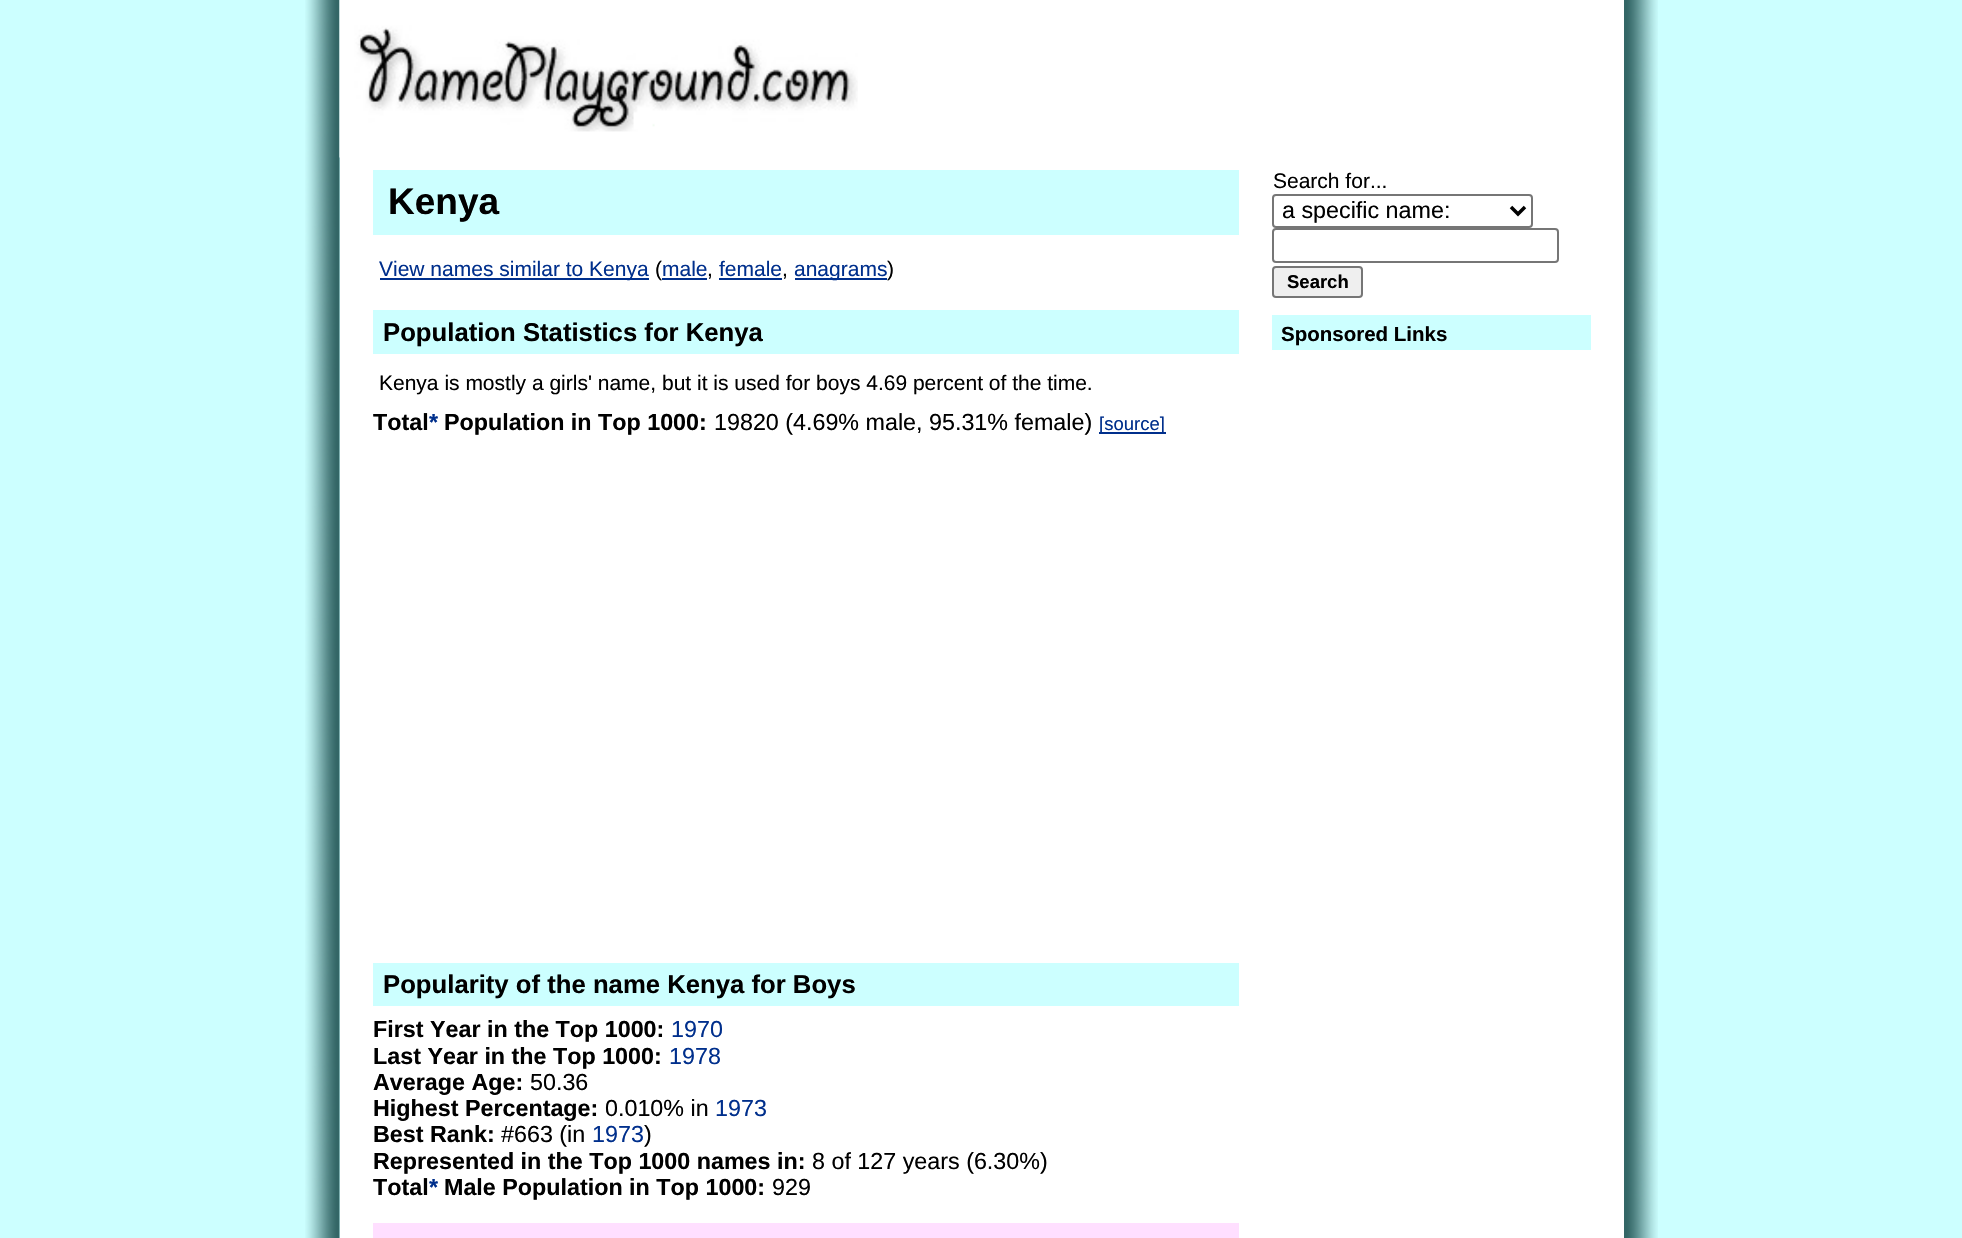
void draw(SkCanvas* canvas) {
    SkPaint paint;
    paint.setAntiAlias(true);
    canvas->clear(0xFFCCFFFF);
    canvas->drawImageRect(SkImages::DeferredFromEncodedData(SkData::MakeFromFileName("img1.png")), SkRect::MakeXYWH(305, 0, 35, 1238), SkSamplingOptions());
    paint.setColor(0xFFFFFFFF);
    canvas->drawRect(SkRect::MakeXYWH(340, 0, 1284, 170), paint);
    canvas->drawImageRect(SkImages::DeferredFromEncodedData(SkData::MakeFromFileName("img2.png")), SkRect::MakeXYWH(339, 0, 519, 158), SkSamplingOptions());
    canvas->drawRect(SkRect::MakeXYWH(340, 170, 33, 1068), paint);
    canvas->drawRect(SkRect::MakeXYWH(373, 235, 866, 988), paint);
    SkFont font1(fontMgr->matchFamilyStyle("Liberation Sans", SkFontStyle::Bold()), 37);
    font1.setSubpixel(true);
    paint.setColor(0xFF000000);
    canvas->drawString("Kenya", 388, 214, font1, paint);
    paint.setColor(0xFF002F8C);
    canvas->drawRect(SkRect::MakeXYWH(380, 278, 269, 2), paint);
    SkFont font2(fontMgr->matchFamilyStyle("Liberation Sans", SkFontStyle::Normal()), 21);
    font2.setSubpixel(true);
    canvas->drawString("View names similar to Kenya", 379, 276, font2, paint);
    paint.setColor(0xFF000000);
    canvas->drawString("(", 655, 276, font2, paint);
    paint.setColor(0xFF002F8C);
    canvas->drawString("male", 662, 276, font2, paint);
    canvas->drawRect(SkRect::MakeXYWH(662, 278, 45, 2), paint);
    paint.setColor(0xFF000000);
    canvas->drawString(",", 707, 276, font2, paint);
    paint.setColor(0xFF002F8C);
    canvas->drawString("female", 719, 276, font2, paint);
    canvas->drawRect(SkRect::MakeXYWH(719, 278, 63, 2), paint);
    paint.setColor(0xFF000000);
    canvas->drawString(",", 782, 276, font2, paint);
    paint.setColor(0xFF002F8C);
    canvas->drawRect(SkRect::MakeXYWH(795, 278, 92, 2), paint);
    canvas->drawString("anagrams", 794, 276, font2, paint);
    paint.setColor(0xFF000000);
    canvas->drawString(")", 887, 276, font2, paint);
    paint.setColor(0xFFCCFFFF);
    canvas->drawRect(SkRect::MakeXYWH(373, 310, 866, 44), paint);
    SkFont font3(fontMgr->matchFamilyStyle("Liberation Sans", SkFontStyle::Bold()), 25.7f);
    font3.setSubpixel(true);
    paint.setColor(0xFF000000);
    canvas->drawString("Population Statistics for Kenya", 383, 341, font3, paint);
    canvas->drawString("Kenya is mostly a girls' name, but it is used for boys 4.69 percent of the time.", 379, 390, font2, paint);
    SkFont font4(fontMgr->matchFamilyStyle("Liberation Sans", SkFontStyle::Bold()), 23.3f);
    font4.setSubpixel(true);
    canvas->drawString("Total", 373, 430, font4, paint);
    paint.setColor(0xFF002F8C);
    canvas->drawString("*", 429, 430, font4, paint);
    paint.setColor(0xFF000000);
    canvas->drawString("Population in Top 1000:", 444, 430, font4, paint);
    SkFont font5(fontMgr->matchFamilyStyle("Liberation Sans", SkFontStyle::Normal()), 23.3f);
    font5.setSubpixel(true);
    canvas->drawString("19820 (4.69% male, 95.31% female)", 714, 430, font5, paint);
    paint.setColor(0xFF002F8C);
    canvas->drawRect(SkRect::MakeXYWH(1099, 432, 67, 2), paint);
    SkFont font6(fontMgr->matchFamilyStyle("Liberation Sans", SkFontStyle::Normal()), 18.5f);
    font6.setSubpixel(true);
    canvas->drawString("[source]", 1099, 430, font6, paint);
    paint.setColor(0xFFCCFFFF);
    canvas->drawRect(SkRect::MakeXYWH(373, 963, 866, 43), paint);
    paint.setColor(0xFF000000);
    canvas->drawString("Popularity of the name Kenya for Boys", 383, 993, font3, paint);
    canvas->drawString("First Year in the Top 1000:", 373, 1037, font4, paint);
    paint.setColor(0xFF002F8C);
    canvas->drawString("1970", 671, 1037, font5, paint);
    paint.setColor(0xFF000000);
    canvas->drawString("Last Year in the Top 1000:", 373, 1064, font4, paint);
    paint.setColor(0xFF002F8C);
    canvas->drawString("1978", 669, 1064, font5, paint);
    paint.setColor(0xFF000000);
    canvas->drawString("Average Age:", 373, 1090, font4, paint);
    canvas->drawString("50.36", 530, 1090, font5, paint);
    canvas->drawString("Highest Percentage:", 373, 1116, font4, paint);
    canvas->drawString("0.010% in", 605, 1116, font5, paint);
    paint.setColor(0xFF002F8C);
    canvas->drawString("1973", 715, 1116, font5, paint);
    paint.setColor(0xFF000000);
    canvas->drawString("Best Rank:", 373, 1142, font4, paint);
    canvas->drawString("#663 (in", 501, 1142, font5, paint);
    paint.setColor(0xFF002F8C);
    canvas->drawString("1973", 592, 1142, font5, paint);
    paint.setColor(0xFF000000);
    canvas->drawString(")", 644, 1142, font5, paint);
    canvas->drawString("Represented in the Top 1000 names in:", 373, 1169, font4, paint);
    canvas->drawString("8 of 127 years (6.30%)", 812, 1169, font5, paint);
    canvas->drawString("Total", 373, 1195, font4, paint);
    paint.setColor(0xFF002F8C);
    canvas->drawString("*", 429, 1195, font4, paint);
    paint.setColor(0xFF000000);
    canvas->drawString("Male Population in Top 1000:", 444, 1195, font4, paint);
    canvas->drawString("929", 772, 1195, font5, paint);
    paint.setColor(0xFFFFDFFF);
    canvas->drawRect(SkRect::MakeXYWH(373, 1223, 866, 15), paint);
    paint.setColor(0xFFFFFFFF);
    canvas->drawRect(SkRect::MakeXYWH(1239, 170, 385, 1068), paint);
    paint.setColor(0xFF000000);
    canvas->drawString("Search for...", 1273, 188, font2, paint);
    paint.setStyle(SkPaint::kStroke_Style);
    paint.setStrokeWidth(2);
    paint.setColor(0xFF767676);
    canvas->drawRoundRect(SkRect::MakeXYWH(1273, 195, 259, 32), 3, 3, paint);
    paint.setStrokeWidth(3.5f);
    paint.setColor(0xFF000000);
    canvas->drawPath(SkPathBuilder().moveTo(1511, 207).lineTo(1518, 214).lineTo(1525, 207).detach(), paint);
    paint.setStyle(SkPaint::kFill_Style);
    canvas->drawString("a specific name:", 1282, 218, font5, paint);
    paint.setStyle(SkPaint::kStroke_Style);
    paint.setStrokeWidth(2);
    paint.setColor(0xFF767676);
    canvas->drawRoundRect(SkRect::MakeXYWH(1273, 229, 285, 33), 3, 3, paint);
    paint.setStyle(SkPaint::kFill_Style);
    paint.setColor(0xFFEFEFEF);
    canvas->drawRoundRect(SkRect::MakeXYWH(1273, 267, 89, 30), 3, 3, paint);
    paint.setStyle(SkPaint::kStroke_Style);
    paint.setColor(0xFF767676);
    canvas->drawRoundRect(SkRect::MakeXYWH(1273, 267, 89, 30), 3, 3, paint);
    SkFont font7(fontMgr->matchFamilyStyle("Liberation Sans", SkFontStyle::Bold()), 18.5f);
    font7.setSubpixel(true);
    paint.setStyle(SkPaint::kFill_Style);
    paint.setColor(0xFF000000);
    canvas->drawString("Search", 1287, 288, font7, paint);
    paint.setColor(0xFFCCFFFF);
    canvas->drawRect(SkRect::MakeXYWH(1272, 315, 319, 35), paint);
    SkFont font8(fontMgr->matchFamilyStyle("Liberation Sans", SkFontStyle::Bold()), 20.5f);
    font8.setSubpixel(true);
    paint.setColor(0xFF000000);
    canvas->drawString("Sponsored Links", 1281, 341, font8, paint);
    canvas->drawImageRect(SkImages::DeferredFromEncodedData(SkData::MakeFromFileName("img3.png")), SkRect::MakeXYWH(1624, 0, 34, 1238), SkSamplingOptions());
}
